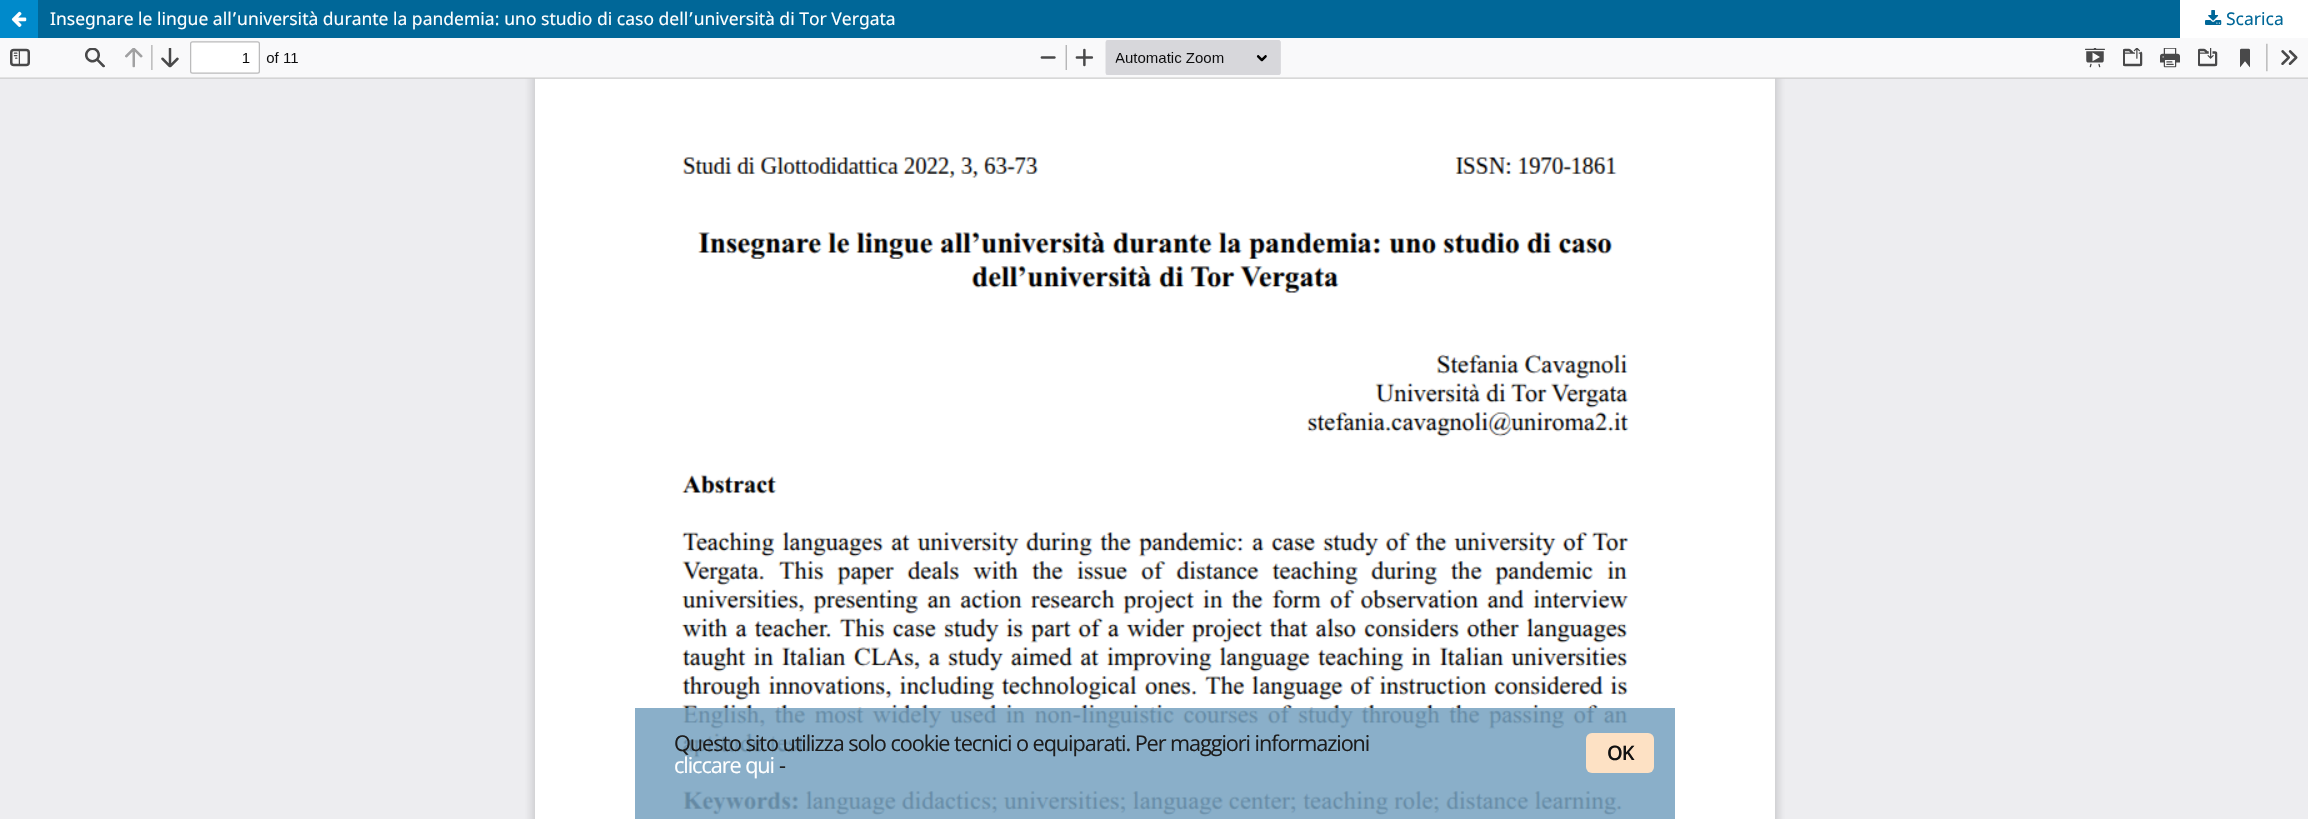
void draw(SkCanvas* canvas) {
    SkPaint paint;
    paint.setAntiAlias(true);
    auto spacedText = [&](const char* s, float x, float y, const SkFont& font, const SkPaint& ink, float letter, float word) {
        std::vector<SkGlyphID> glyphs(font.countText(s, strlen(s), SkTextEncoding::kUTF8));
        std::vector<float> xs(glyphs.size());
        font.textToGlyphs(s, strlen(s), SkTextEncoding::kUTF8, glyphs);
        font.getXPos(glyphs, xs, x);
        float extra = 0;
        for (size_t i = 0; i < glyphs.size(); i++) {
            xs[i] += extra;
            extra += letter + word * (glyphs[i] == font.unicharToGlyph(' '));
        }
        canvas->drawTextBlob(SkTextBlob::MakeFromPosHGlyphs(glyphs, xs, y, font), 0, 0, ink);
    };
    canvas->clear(0xFFFFFFFF);
    paint.setColor(0xFF006798);
    canvas->drawRect(SkRect::MakeXYWH(38, 0, 2142, 38), paint);
    paint.setColor(0xFF008ACB);
    canvas->drawRect(SkRect::MakeXYWH(0, 0, 38, 38), paint);
    canvas->drawImageRect(SkImages::DeferredFromEncodedData(SkData::MakeFromFileName("img1.png")), SkRect::MakeXYWH(11, 11, 16, 16), SkSamplingOptions());
    SkFont font1(fontMgr->matchFamilyStyle("Noto Sans", SkFontStyle::Normal()), 17.5f);
    font1.setSubpixel(true);
    paint.setColor(0xFFFFFFFF);
    canvas->drawString("Insegnare le lingue all’università durante la pandemia: uno studio di caso dell’università di Tor Vergata", 50, 25, font1, paint);
    canvas->drawImageRect(SkImages::DeferredFromEncodedData(SkData::MakeFromFileName("img2.png")), SkRect::MakeXYWH(2205, 10, 17, 15), SkSamplingOptions());
    paint.setColor(0xFF006798);
    canvas->drawString("Scarica", 2226, 25, font1, paint);
    canvas->drawImageRect(SkImages::DeferredFromEncodedData(SkData::MakeFromFileName("img3.png")), SkRect::MakeXYWH(0, 38, 2308, 781), SkSamplingOptions());
    paint.setColor(0xD975A1C0);
    canvas->drawRect(SkRect::MakeXYWH(635, 708, 1040, 111), paint);
    paint.setStyle(SkPaint::kStroke_Style);
    paint.setStrokeWidth(1.2f);
    paint.setColor(0xFFCCCCCC);
    paint.setPathEffect(SkDashPathEffect::Make({{1.25f, 1.25f}}, 0));
    canvas->drawPath(SkPathBuilder().moveTo(635, 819.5f).lineTo(1675, 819.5f).detach(), paint);
    paint.setPathEffect(nullptr);
    SkFont font2(fontMgr->matchFamilyStyle("Open Sans", SkFontStyle::Normal()), 21.7f);
    font2.setSubpixel(true);
    paint.setStyle(SkPaint::kFill_Style);
    paint.setColor(0xFF1D1D1D);
    spacedText("Questo sito utilizza solo cookie tecnici o equiparati. Per maggiori informazioni", 674, 751, font2, paint, -1.08f, 0);
    paint.setColor(0xFFFFFFFF);
    spacedText("cliccare qui", 674, 773, font2, paint, -1.08f, 0);
    paint.setColor(0xFF1D1D1D);
    spacedText("-", 779, 773, font2, paint, -1.08f, 0);
    paint.setColor(0xFFFDE1C4);
    canvas->drawRoundRect(SkRect::MakeXYWH(1586, 733, 68, 40), 6, 6, paint);
    SkFont font3(fontMgr->matchFamilyStyle("Open Sans", SkFontStyle(600, SkFontStyle::kNormal_Width, SkFontStyle::kUpright_Slant)), 20);
    font3.setSubpixel(true);
    paint.setColor(0xFF111111);
    spacedText("OK", 1607, 760, font3, paint, -1, 0);
}
